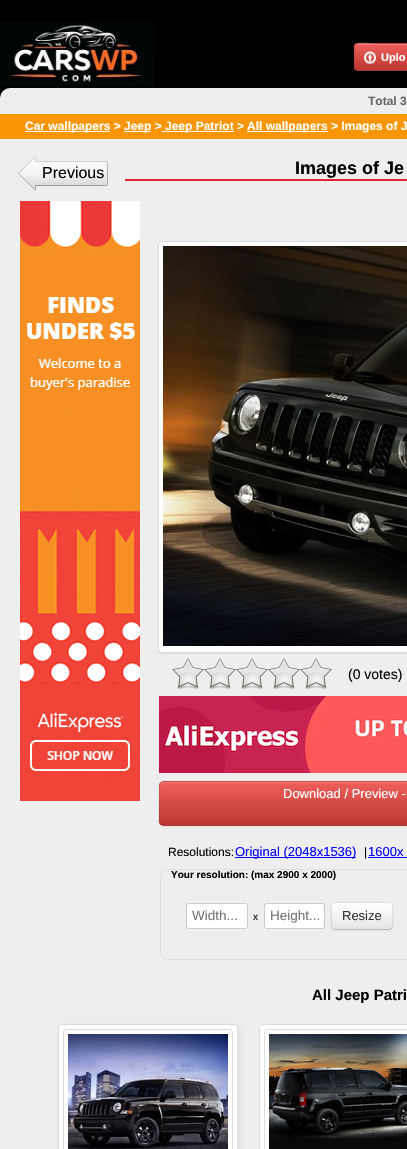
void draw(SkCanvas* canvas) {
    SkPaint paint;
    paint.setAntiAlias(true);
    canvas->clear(0xFF000000);
    canvas->drawImageRect(SkImages::DeferredFromEncodedData(SkData::MakeFromFileName("img1.png")), SkRect::MakeXYWH(0, 22, 154, 64), SkSamplingOptions());
    paint.setColor(0xFFDA4F49);
    canvas->drawRoundRect(SkRect::MakeXYWH(354, 43, 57, 28), 4, 4, paint);
    canvas->save();
    canvas->clipPath(SkPathBuilder().moveTo(358, 43).lineTo(466, 43).cubicTo(468, 43, 470, 45, 470, 47).lineTo(470, 67).cubicTo(470, 69, 468, 71, 466, 71).lineTo(358, 71).cubicTo(356, 71, 354, 69, 354, 67).lineTo(354, 47).cubicTo(354, 45, 356, 43, 358, 43).close().detach(), true);
    {
        const SkColor colors[] = {0xFFEE5F5B, 0xFFBD362F};
        const float stops[] = {0, 1};
        const SkPoint ends[] = {{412, 44}, {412, 70}};
        paint.setShader(SkGradientShader::MakeLinear(ends, colors, stops, 2, SkTileMode::kClamp));
        paint.setAlpha(255);
    }
    canvas->drawRect(SkRect::MakeXYWH(354, 44, 53, 26), paint);
    canvas->restore();
    paint.setShader(nullptr);
    paint.setColor(0x33FFFFFF);
    canvas->drawPath(SkPathBuilder().moveTo(358, 45).lineTo(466, 45).cubicTo(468, 45, 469, 46, 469, 48).cubicTo(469, 46, 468, 44, 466, 44).lineTo(376, 44).cubicTo(374, 44, 355, 39, 355, 48).cubicTo(355, 46, 356, 45, 358, 45).close().detach(), paint);
    paint.setStyle(SkPaint::kStroke_Style);
    paint.setStrokeWidth(1);
    paint.setColor(0x40000000);
    canvas->drawPath(SkPathBuilder().moveTo(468.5f, 69.5f).lineTo(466, 70.5f).lineTo(357.5f, 70.5f).lineTo(355.5f, 69.5f).detach(), paint);
    paint.setColor(0x1A000000);
    canvas->drawPath(SkPathBuilder().moveTo(355.5f, 69.5f).cubicTo(353.5f, 67, 354.5f, 59.5f, 354.5f, 57).cubicTo(354.5f, 39, 353.5f, 43.5f, 376, 43.5f).lineTo(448, 43.5f).cubicTo(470.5f, 43.5f, 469.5f, 39, 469.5f, 57).cubicTo(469.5f, 59.5f, 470.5f, 67, 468.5f, 69.5f).detach(), paint);
    canvas->drawImageRect(SkImages::DeferredFromEncodedData(SkData::MakeFromFileName("img2.png")), SkRect::MakeXYWH(364, 51, 12, 13), SkSamplingOptions());
    SkFont font1(fontMgr->matchFamilyStyle("Liberation Sans", SkFontStyle::Bold()), 11);
    font1.setSubpixel(true);
    paint.setStyle(SkPaint::kFill_Style);
    paint.setColor(0xFFFFFFFF);
    canvas->drawString("Uplo", 381, 61, font1, paint);
    paint.setColor(0xFFEEEEEE);
    canvas->drawRoundRect(SkRect::MakeXYWH(0, 88, 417, 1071), 10, 10, paint);
    SkFont font2(fontMgr->matchFamilyStyle("Liberation Sans", SkFontStyle::Bold()), 12);
    font2.setSubpixel(true);
    paint.setColor(0xFF666666);
    canvas->drawString("Total 3", 368, 105, font2, paint);
    paint.setColor(0xFFF99500);
    canvas->drawRect(SkRect::MakeXYWH(0, 114, 407, 25), paint);
    paint.setColor(0xFFFFFFFF);
    canvas->drawRect(SkRect::MakeXYWH(0, 113, 407, 1), paint);
    canvas->drawRect(SkRect::MakeXYWH(0, 139, 407, 1), paint);
    canvas->drawRect(SkRect::MakeXYWH(25, 131, 85, 1), paint);
    canvas->drawString("Car wallpapers >", 25, 130, font2, paint);
    canvas->drawRect(SkRect::MakeXYWH(124, 131, 27, 1), paint);
    canvas->drawString("Jeep >", 124, 130, font2, paint);
    canvas->drawRect(SkRect::MakeXYWH(162, 131, 72, 1), paint);
    canvas->drawString("Jeep Patriot >", 165, 130, font2, paint);
    canvas->drawRect(SkRect::MakeXYWH(247, 131, 81, 1), paint);
    canvas->drawString("All wallpapers > Images of J", 247, 130, font2, paint);
    canvas->drawImageRect(SkImages::DeferredFromEncodedData(SkData::MakeFromFileName("img3.png")), SkRect::MakeXYWH(18, 157, 90, 33), SkSamplingOptions());
    SkFont font3(fontMgr->matchFamilyStyle("Liberation Sans", SkFontStyle::Normal()), 16);
    font3.setSubpixel(true);
    paint.setColor(0xFF000000);
    canvas->drawString("Previous", 42, 178, font3, paint);
    paint.setColor(0xFFE32636);
    canvas->drawRect(SkRect::MakeXYWH(125, 179, 282, 2), paint);
    SkFont font4(fontMgr->matchFamilyStyle("Liberation Sans", SkFontStyle::Bold()), 18);
    font4.setSubpixel(true);
    paint.setColor(0xFF000000);
    canvas->drawString("Images of Je", 295, 174, font4, paint);
    canvas->drawImageRect(SkImages::DeferredFromEncodedData(SkData::MakeFromFileName("img4.png")), SkRect::MakeXYWH(20, 201, 120, 600), SkSamplingOptions());
    paint.setColor(0x12000000);
    paint.setMaskFilter(SkMaskFilter::MakeBlur(kNormal_SkBlurStyle, 0.5f));
    canvas->drawRoundRect(SkRect::MakeXYWH(158, 242, 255, 412), 4, 4, paint);
    paint.setMaskFilter(nullptr);
    paint.setColor(0xFFFFFFFF);
    canvas->drawRoundRect(SkRect::MakeXYWH(158.5f, 241.5f, 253, 411), 3.5f, 3.5f, paint);
    paint.setStyle(SkPaint::kStroke_Style);
    paint.setColor(0xFFDDDDDD);
    canvas->drawRoundRect(SkRect::MakeXYWH(158.5f, 241.5f, 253, 411), 3.5f, 3.5f, paint);
    canvas->drawImageRect(SkImages::DeferredFromEncodedData(SkData::MakeFromFileName("img5.png")), SkRect::MakeXYWH(163, 246, 244, 400), SkSamplingOptions());
    canvas->drawImageRect(SkImages::DeferredFromEncodedData(SkData::MakeFromFileName("img6.png")), SkRect::MakeXYWH(172, 658, 160, 31), SkSamplingOptions());
    SkFont font5(fontMgr->matchFamilyStyle("Liberation Sans", SkFontStyle::Normal()), 14);
    font5.setSubpixel(true);
    paint.setStyle(SkPaint::kFill_Style);
    paint.setColor(0xFF000000);
    canvas->drawString("(0 votes)", 348, 679, font5, paint);
    canvas->drawImageRect(SkImages::DeferredFromEncodedData(SkData::MakeFromFileName("img7.png")), SkRect::MakeXYWH(159, 696, 248, 77), SkSamplingOptions());
    paint.setColor(0x0D000000);
    paint.setMaskFilter(SkMaskFilter::MakeBlur(kNormal_SkBlurStyle, 1));
    canvas->drawRoundRect(SkRect::MakeXYWH(159, 782, 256, 45), 5, 5, paint);
    paint.setMaskFilter(nullptr);
    paint.setColor(0xFFDA4F49);
    canvas->drawRoundRect(SkRect::MakeXYWH(159, 781, 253, 45), 5, 5, paint);
    canvas->save();
    canvas->clipPath(SkPathBuilder().moveTo(164, 781).lineTo(738, 781).cubicTo(741, 781, 743, 783, 743, 786).lineTo(743, 821).cubicTo(743, 824, 741, 826, 738, 826).lineTo(164, 826).cubicTo(161, 826, 159, 824, 159, 821).lineTo(159, 786).cubicTo(159, 783, 161, 781, 164, 781).close().detach(), true);
    {
        const SkColor colors[] = {0xFFEE5F5B, 0xFFBD362F};
        const float stops[] = {0, 1};
        const SkPoint ends[] = {{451, 782}, {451, 825}};
        paint.setShader(SkGradientShader::MakeLinear(ends, colors, stops, 2, SkTileMode::kClamp));
        paint.setAlpha(255);
    }
    canvas->drawRect(SkRect::MakeXYWH(159, 782, 248, 43), paint);
    canvas->restore();
    paint.setShader(nullptr);
    paint.setColor(0xFFF17F7B);
    canvas->drawPath(SkPathBuilder().moveTo(164, 783).lineTo(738, 783).cubicTo(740, 783, 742, 785, 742, 787).lineTo(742, 786).cubicTo(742, 784, 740, 782, 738, 782).lineTo(164, 782).cubicTo(162, 782, 160, 784, 160, 786).lineTo(160, 787).cubicTo(160, 785, 162, 783, 164, 783).close().detach(), paint);
    paint.setStyle(SkPaint::kStroke_Style);
    paint.setColor(0x40000000);
    canvas->drawPath(SkPathBuilder().moveTo(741, 824).cubicTo(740.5f, 825, 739, 825.5f, 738, 825.5f).lineTo(164, 825.5f).cubicTo(163, 825.5f, 161.5f, 825, 161, 824).detach(), paint);
    paint.setColor(0x1A000000);
    canvas->drawPath(SkPathBuilder().moveTo(161, 824).cubicTo(160, 823.5f, 159.5f, 822, 159.5f, 821).lineTo(159.5f, 786).cubicTo(159.5f, 785, 160, 783.5f, 161, 783).cubicTo(161.5f, 782, 163, 781.5f, 164, 781.5f).lineTo(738, 781.5f).cubicTo(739, 781.5f, 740.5f, 782, 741, 783).cubicTo(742, 783.5f, 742.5f, 785, 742.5f, 786).lineTo(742.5f, 821).cubicTo(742.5f, 822, 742, 823.5f, 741, 824).detach(), paint);
    SkFont font6(fontMgr->matchFamilyStyle("Liberation Sans", SkFontStyle::Normal()), 13);
    font6.setSubpixel(true);
    paint.setStyle(SkPaint::kFill_Style);
    paint.setColor(0xFFFFFFFF);
    canvas->drawString("Download / Preview -", 283, 798, font6, paint);
    SkFont font7(fontMgr->matchFamilyStyle("Liberation Sans", SkFontStyle::Normal()), 12);
    font7.setSubpixel(true);
    paint.setColor(0xFF000000);
    canvas->drawString("Resolutions:", 168, 856, font7, paint);
    paint.setColor(0xFF0000FF);
    canvas->drawRect(SkRect::MakeXYWH(235, 857, 121, 1), paint);
    canvas->drawString("Original (2048x1536)", 235, 856, font6, paint);
    paint.setColor(0xFF000000);
    canvas->drawString("|", 364, 856, font7, paint);
    paint.setColor(0xFF0000FF);
    canvas->drawString("1600x", 368, 856, font6, paint);
    canvas->drawRect(SkRect::MakeXYWH(368, 857, 39, 1), paint);
    paint.setStyle(SkPaint::kStroke_Style);
    paint.setColor(0xFFDFDFDF);
    canvas->drawRoundRect(SkRect::MakeXYWH(160.5f, 869.5f, 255, 90), 7.5f, 7.5f, paint);
    SkFont font8(fontMgr->matchFamilyStyle("Liberation Sans", SkFontStyle::Bold()), 10);
    font8.setSubpixel(true);
    paint.setStyle(SkPaint::kFill_Style);
    paint.setColor(0xFF000000);
    canvas->drawString("Your resolution: (max 2900 x 2000)", 171, 878, font8, paint);
    paint.setColor(0xFFFFFFFF);
    canvas->drawRoundRect(SkRect::MakeXYWH(186.5f, 903.5f, 61, 25), 2.5f, 2.5f, paint);
    paint.setStyle(SkPaint::kStroke_Style);
    paint.setColor(0xFFCCCCCC);
    canvas->drawRoundRect(SkRect::MakeXYWH(186.5f, 903.5f, 61, 25), 2.5f, 2.5f, paint);
    SkFont font9(fontMgr->matchFamilyStyle("Liberation Sans", SkFontStyle::Normal()), 13.5f);
    font9.setSubpixel(true);
    paint.setStyle(SkPaint::kFill_Style);
    paint.setColor(0xFF757575);
    canvas->drawString("Width...", 192, 920, font9, paint);
    SkFont font10(fontMgr->matchFamilyStyle("Liberation Sans", SkFontStyle::Normal()), 10);
    font10.setSubpixel(true);
    paint.setColor(0xFF000000);
    canvas->drawString("x", 253, 920, font10, paint);
    paint.setColor(0xFFFFFFFF);
    canvas->drawRoundRect(SkRect::MakeXYWH(264.5f, 903.5f, 60, 25), 2.5f, 2.5f, paint);
    paint.setStyle(SkPaint::kStroke_Style);
    paint.setColor(0xFFCCCCCC);
    canvas->drawRoundRect(SkRect::MakeXYWH(264.5f, 903.5f, 60, 25), 2.5f, 2.5f, paint);
    paint.setStyle(SkPaint::kFill_Style);
    paint.setColor(0xFF757575);
    canvas->drawString("Height...", 270, 920, font9, paint);
    paint.setColor(0x0D000000);
    paint.setMaskFilter(SkMaskFilter::MakeBlur(kNormal_SkBlurStyle, 1));
    canvas->drawRoundRect(SkRect::MakeXYWH(331, 903, 62, 28), 4, 4, paint);
    paint.setMaskFilter(nullptr);
    paint.setColor(0xFFF5F5F5);
    canvas->drawRoundRect(SkRect::MakeXYWH(331, 902, 62, 28), 4, 4, paint);
    canvas->save();
    canvas->clipPath(SkPathBuilder().moveTo(335, 902).lineTo(389, 902).cubicTo(391, 902, 393, 904, 393, 906).lineTo(393, 926).cubicTo(393, 928, 391, 930, 389, 930).lineTo(335, 930).cubicTo(333, 930, 331, 928, 331, 926).lineTo(331, 906).cubicTo(331, 904, 333, 902, 335, 902).close().detach(), true);
    {
        const SkColor colors[] = {0xFFFFFFFF, 0xFFE6E6E6};
        const float stops[] = {0, 1};
        const SkPoint ends[] = {{362, 903}, {362, 929}};
        paint.setShader(SkGradientShader::MakeLinear(ends, colors, stops, 2, SkTileMode::kClamp));
        paint.setAlpha(255);
    }
    canvas->drawRect(SkRect::MakeXYWH(331, 903, 62, 26), paint);
    canvas->restore();
    paint.setShader(nullptr);
    paint.setColor(0xFFFFFFFF);
    canvas->drawPath(SkPathBuilder().moveTo(335, 904).lineTo(389, 904).cubicTo(391, 904, 392, 905, 392, 907).cubicTo(392, 901, 384, 903, 380, 903).lineTo(344, 903).cubicTo(340, 903, 332, 901, 332, 907).cubicTo(332, 905, 333, 904, 335, 904).close().detach(), paint);
    paint.setStyle(SkPaint::kStroke_Style);
    paint.setColor(0x40000000);
    canvas->drawPath(SkPathBuilder().moveTo(391.5f, 928.5f).lineTo(389.5f, 929.5f).lineTo(334.5f, 929.5f).lineTo(332.5f, 928.5f).detach(), paint);
    paint.setColor(0x1A000000);
    canvas->drawPath(SkPathBuilder().moveTo(332.5f, 928.5f).cubicTo(330.5f, 926, 331.5f, 918.5f, 331.5f, 916).cubicTo(331.5f, 901.5f, 329.5f, 902.5f, 344, 902.5f).lineTo(380, 902.5f).cubicTo(394.5f, 902.5f, 392.5f, 901.5f, 392.5f, 916).cubicTo(392.5f, 918.5f, 393.5f, 926, 391.5f, 928.5f).detach(), paint);
    paint.setStyle(SkPaint::kFill_Style);
    paint.setColor(0xFF333333);
    canvas->drawString("Resize", 342, 920, font6, paint);
    SkFont font11(fontMgr->matchFamilyStyle("Liberation Sans", SkFontStyle::Bold()), 15);
    font11.setSubpixel(true);
    paint.setColor(0xFF000000);
    canvas->drawString("All Jeep Patri", 312, 1000, font11, paint);
    paint.setColor(0x12000000);
    paint.setMaskFilter(SkMaskFilter::MakeBlur(kNormal_SkBlurStyle, 3.5f));
    canvas->drawRoundRect(SkRect::MakeXYWH(60, 1027, 180, 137), 4, 4, paint);
    paint.setMaskFilter(nullptr);
    paint.setColor(0xFFFFFFFF);
    canvas->drawRoundRect(SkRect::MakeXYWH(58.5f, 1024.5f, 179, 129), 3.5f, 3.5f, paint);
    paint.setStyle(SkPaint::kStroke_Style);
    paint.setColor(0xFFDDDDDD);
    canvas->drawRoundRect(SkRect::MakeXYWH(58.5f, 1024.5f, 179, 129), 3.5f, 3.5f, paint);
    canvas->drawRoundRect(SkRect::MakeXYWH(63.5f, 1029.5f, 169, 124), 3.5f, 3.5f, paint);
    canvas->drawImageRect(SkImages::DeferredFromEncodedData(SkData::MakeFromFileName("img8.png")), SkRect::MakeXYWH(68, 1034, 160, 115), SkSamplingOptions());
    paint.setStyle(SkPaint::kFill_Style);
    paint.setColor(0xFFFFFFFF);
    canvas->drawRoundRect(SkRect::MakeXYWH(259.5f, 1024.5f, 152, 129), 3.5f, 3.5f, paint);
    paint.setStyle(SkPaint::kStroke_Style);
    paint.setColor(0xFFDDDDDD);
    canvas->drawRoundRect(SkRect::MakeXYWH(259.5f, 1024.5f, 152, 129), 3.5f, 3.5f, paint);
    canvas->drawRoundRect(SkRect::MakeXYWH(264.5f, 1029.5f, 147, 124), 3.5f, 3.5f, paint);
    canvas->drawImageRect(SkImages::DeferredFromEncodedData(SkData::MakeFromFileName("img9.png")), SkRect::MakeXYWH(269, 1034, 138, 115), SkSamplingOptions());
}
